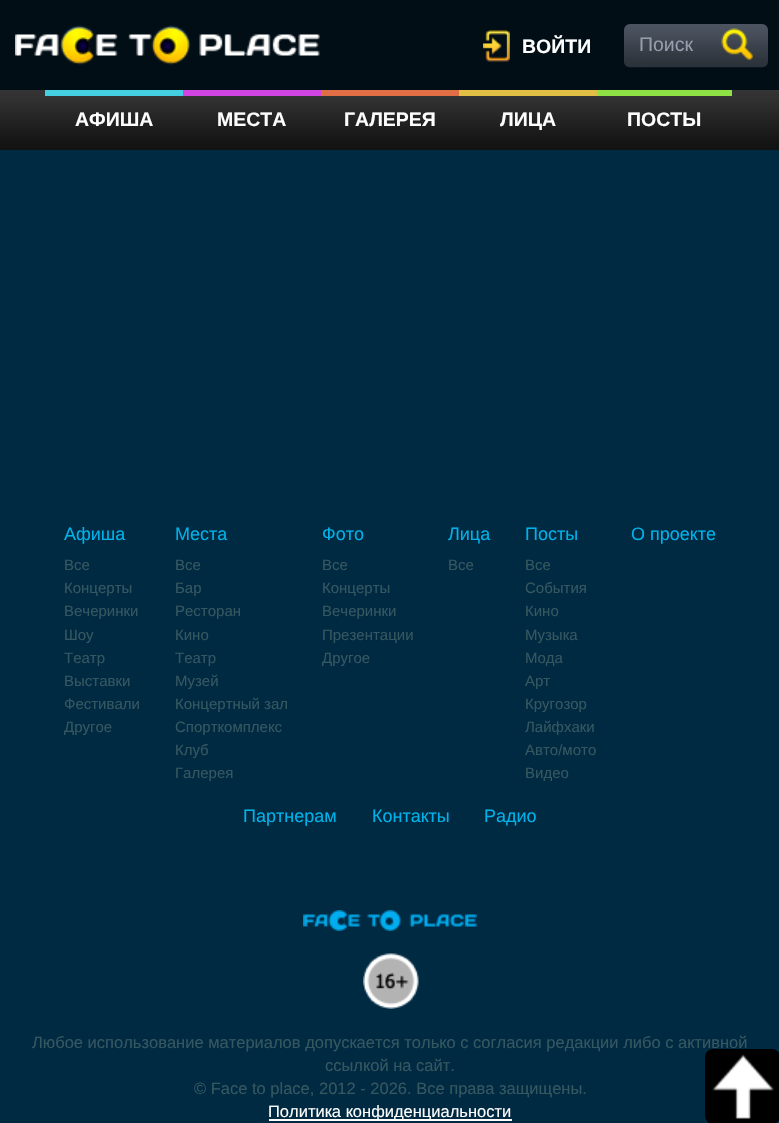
void draw(SkCanvas* canvas) {
    SkPaint paint;
    paint.setAntiAlias(true);
    canvas->clear(0xFF002942);
    paint.setColor(0xFF010E16);
    canvas->drawRect(SkRect::MakeXYWH(0, 0, 779, 150), paint);
    canvas->drawImageRect(SkImages::DeferredFromEncodedData(SkData::MakeFromFileName("img1.png")), SkRect::MakeXYWH(0, 90, 779, 60), SkSamplingOptions());
    canvas->drawImageRect(SkImages::DeferredFromEncodedData(SkData::MakeFromFileName("img2.png")), SkRect::MakeXYWH(15, 25, 305, 40), SkSamplingOptions());
    canvas->drawImageRect(SkImages::DeferredFromEncodedData(SkData::MakeFromFileName("img3.png")), SkRect::MakeXYWH(483, 30, 27, 32), SkSamplingOptions());
    SkFont font1(fontMgr->matchFamilyStyle("Liberation Sans", SkFontStyle::Bold()), 19.5f);
    font1.setSubpixel(true);
    paint.setColor(0xFFFEFEFE);
    canvas->drawString("ВОЙТИ", 522, 53, font1, paint);
    canvas->drawImageRect(SkImages::DeferredFromEncodedData(SkData::MakeFromFileName("img4.png")), SkRect::MakeXYWH(624, 24, 144, 44), SkSamplingOptions());
    SkFont font2(fontMgr->matchFamilyStyle("Liberation Sans", SkFontStyle::Normal()), 19.5f);
    font2.setSubpixel(true);
    paint.setColor(0xFF959EAA);
    canvas->drawString("Поиск", 639, 51, font2, paint);
    canvas->drawImageRect(SkImages::DeferredFromEncodedData(SkData::MakeFromFileName("img5.png")), SkRect::MakeXYWH(721, 28, 32, 32), SkSamplingOptions());
    paint.setColor(0xFF44CFE1);
    canvas->drawRect(SkRect::MakeXYWH(45, 90, 138, 6), paint);
    paint.setColor(0xFFFEFEFE);
    canvas->drawString("АФИША", 75, 126, font1, paint);
    paint.setColor(0xFFD044E1);
    canvas->drawRect(SkRect::MakeXYWH(183, 90, 138, 6), paint);
    paint.setColor(0xFFFEFEFE);
    canvas->drawString("МЕСТА", 217, 126, font1, paint);
    paint.setColor(0xFFE16E44);
    canvas->drawRect(SkRect::MakeXYWH(321, 90, 138, 6), paint);
    paint.setColor(0xFFFEFEFE);
    canvas->drawString("ГАЛЕРЕЯ", 344, 126, font1, paint);
    paint.setColor(0xFFE1BF44);
    canvas->drawRect(SkRect::MakeXYWH(459, 90, 138, 6), paint);
    paint.setColor(0xFFFEFEFE);
    canvas->drawString("ЛИЦА", 500, 126, font1, paint);
    paint.setColor(0xFF8DE144);
    canvas->drawRect(SkRect::MakeXYWH(597, 90, 135, 6), paint);
    paint.setColor(0xFFFEFEFE);
    canvas->drawString("ПОСТЫ", 627, 126, font1, paint);
    SkFont font3(fontMgr->matchFamilyStyle("Liberation Sans", SkFontStyle::Normal()), 18);
    font3.setSubpixel(true);
    paint.setColor(0xFF01B2E9);
    canvas->drawString("Афиша", 64, 540, font3, paint);
    SkFont font4(fontMgr->matchFamilyStyle("Liberation Sans", SkFontStyle::Normal()), 15);
    font4.setSubpixel(true);
    paint.setColor(0xFF355760);
    canvas->drawString("Все", 64, 570, font4, paint);
    canvas->drawString("Концерты", 64, 593, font4, paint);
    canvas->drawString("Вечеринки", 64, 616, font4, paint);
    canvas->drawString("Шоу", 64, 640, font4, paint);
    canvas->drawString("Театр", 64, 663, font4, paint);
    canvas->drawString("Выставки", 64, 686, font4, paint);
    canvas->drawString("Фестивали", 64, 709, font4, paint);
    canvas->drawString("Другое", 64, 732, font4, paint);
    paint.setColor(0xFF01B2E9);
    canvas->drawString("Места", 175, 540, font3, paint);
    paint.setColor(0xFF355760);
    canvas->drawString("Все", 175, 570, font4, paint);
    canvas->drawString("Бар", 175, 593, font4, paint);
    canvas->drawString("Ресторан", 175, 616, font4, paint);
    canvas->drawString("Кино", 175, 640, font4, paint);
    canvas->drawString("Театр", 175, 663, font4, paint);
    canvas->drawString("Музей", 175, 686, font4, paint);
    canvas->drawString("Концертный зал", 175, 709, font4, paint);
    canvas->drawString("Спорткомплекс", 175, 732, font4, paint);
    canvas->drawString("Клуб", 175, 755, font4, paint);
    canvas->drawString("Галерея", 175, 778, font4, paint);
    paint.setColor(0xFF01B2E9);
    canvas->drawString("Фото", 322, 540, font3, paint);
    paint.setColor(0xFF355760);
    canvas->drawString("Все", 322, 570, font4, paint);
    canvas->drawString("Концерты", 322, 593, font4, paint);
    canvas->drawString("Вечеринки", 322, 616, font4, paint);
    canvas->drawString("Презентации", 322, 640, font4, paint);
    canvas->drawString("Другое", 322, 663, font4, paint);
    paint.setColor(0xFF01B2E9);
    canvas->drawString("Лица", 448, 540, font3, paint);
    paint.setColor(0xFF355760);
    canvas->drawString("Все", 448, 570, font4, paint);
    paint.setColor(0xFF01B2E9);
    canvas->drawString("Посты", 525, 540, font3, paint);
    paint.setColor(0xFF355760);
    canvas->drawString("Все", 525, 570, font4, paint);
    canvas->drawString("События", 525, 593, font4, paint);
    canvas->drawString("Кино", 525, 616, font4, paint);
    canvas->drawString("Музыка", 525, 640, font4, paint);
    canvas->drawString("Мода", 525, 663, font4, paint);
    canvas->drawString("Арт", 525, 686, font4, paint);
    canvas->drawString("Кругозор", 525, 709, font4, paint);
    canvas->drawString("Лайфхаки", 525, 732, font4, paint);
    canvas->drawString("Авто/мото", 525, 755, font4, paint);
    canvas->drawString("Видео", 525, 778, font4, paint);
    paint.setColor(0xFF01B2E9);
    canvas->drawString("О проекте", 631, 540, font3, paint);
    canvas->drawString("Партнерам", 243, 822, font3, paint);
    canvas->drawString("Контакты", 372, 822, font3, paint);
    canvas->drawString("Радио", 484, 822, font3, paint);
    canvas->drawImageRect(SkImages::DeferredFromEncodedData(SkData::MakeFromFileName("img6.png")), SkRect::MakeXYWH(303, 910, 174, 21), SkSamplingOptions());
    canvas->drawImageRect(SkImages::DeferredFromEncodedData(SkData::MakeFromFileName("img7.png")), SkRect::MakeXYWH(363, 953, 56, 56), SkSamplingOptions());
    SkFont font5(fontMgr->matchFamilyStyle("Liberation Sans", SkFontStyle::Normal()), 16.5f);
    font5.setSubpixel(true);
    paint.setColor(0xFF355760);
    canvas->drawString("Любое использование материалов допускается только с согласия редакции либо с активной", 32, 1048, font5, paint);
    canvas->drawString("ссылкой на сайт.", 325, 1071, font5, paint);
    canvas->drawString("© Face to place, 2012 - 2026. Все права защищены.", 194, 1094, font5, paint);
    paint.setColor(0xFFFEFEFE);
    canvas->drawRect(SkRect::MakeXYWH(269, 1119, 243, 2), paint);
    canvas->drawString("Политика конфиденциальности", 268, 1117, font5, paint);
    paint.setColor(0xFF000000);
    canvas->drawRoundRect(SkRect::MakeXYWH(705, 1049, 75, 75), 8, 8, paint);
    canvas->drawImageRect(SkImages::DeferredFromEncodedData(SkData::MakeFromFileName("img8.png")), SkRect::MakeXYWH(712, 1054, 62, 65), SkSamplingOptions());
}
